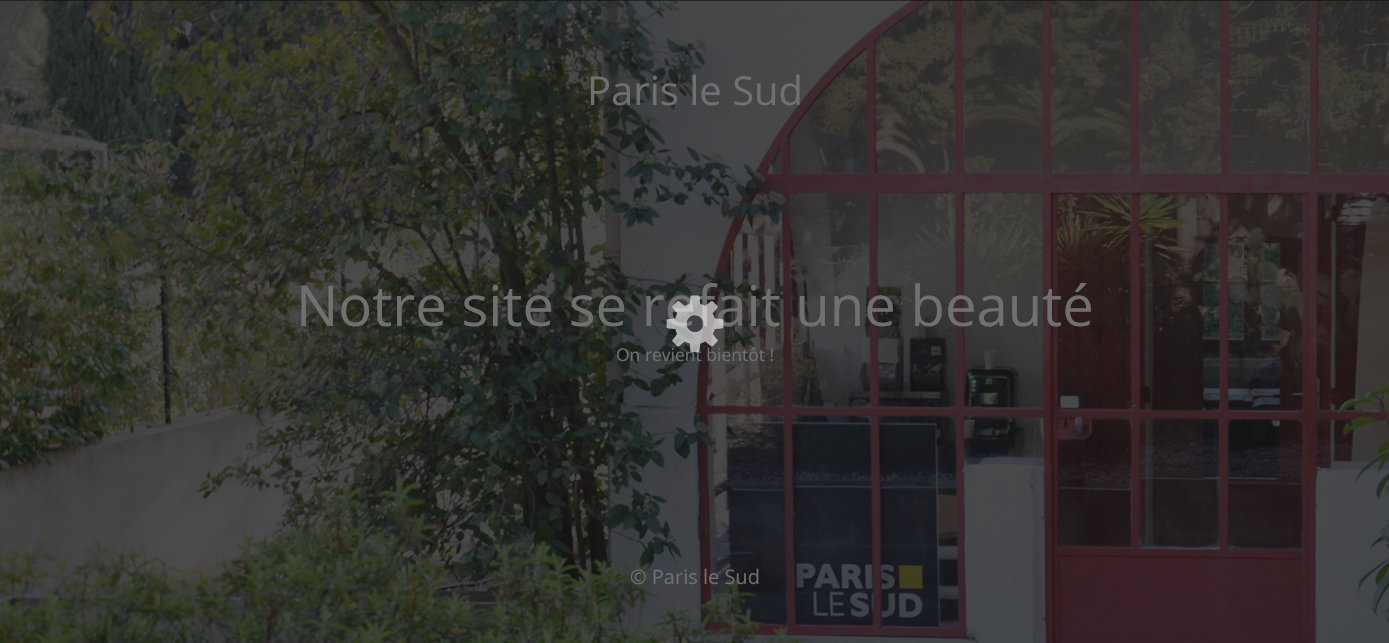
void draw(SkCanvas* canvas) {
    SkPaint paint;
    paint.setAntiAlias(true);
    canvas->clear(0xFF111111);
    canvas->drawImageRect(SkImages::DeferredFromEncodedData(SkData::MakeFromFileName("img1.png")), SkRect::MakeXYWH(0, 0, 1389, 643), SkSamplingOptions());
    SkFont font1(fontMgr->matchFamilyStyle("Open Sans", SkFontStyle::Normal()), 40);
    font1.setSubpixel(true);
    paint.setColor(0xFF707070);
    canvas->drawString("Paris le Sud", 587, 105, font1, paint);
    SkFont font2(fontMgr->matchFamilyStyle("Open Sans", SkFontStyle::Normal()), 56.25f);
    font2.setSubpixel(true);
    canvas->drawString("Notre site se refait une beauté", 296, 326, font2, paint);
    SkFont font3(fontMgr->matchFamilyStyle("Open Sans", SkFontStyle::Normal()), 17.5f);
    font3.setSubpixel(true);
    canvas->drawString("On revient bientôt !", 616, 361, font3, paint);
    canvas->drawImageRect(SkImages::DeferredFromEncodedData(SkData::MakeFromFileName("img2.png")), SkRect::MakeXYWH(666, 295, 58, 58), SkSamplingOptions());
    SkFont font4(fontMgr->matchFamilyStyle("Open Sans", SkFontStyle::Normal()), 20);
    font4.setSubpixel(true);
    canvas->drawString("© Paris le Sud", 630, 584, font4, paint);
}
